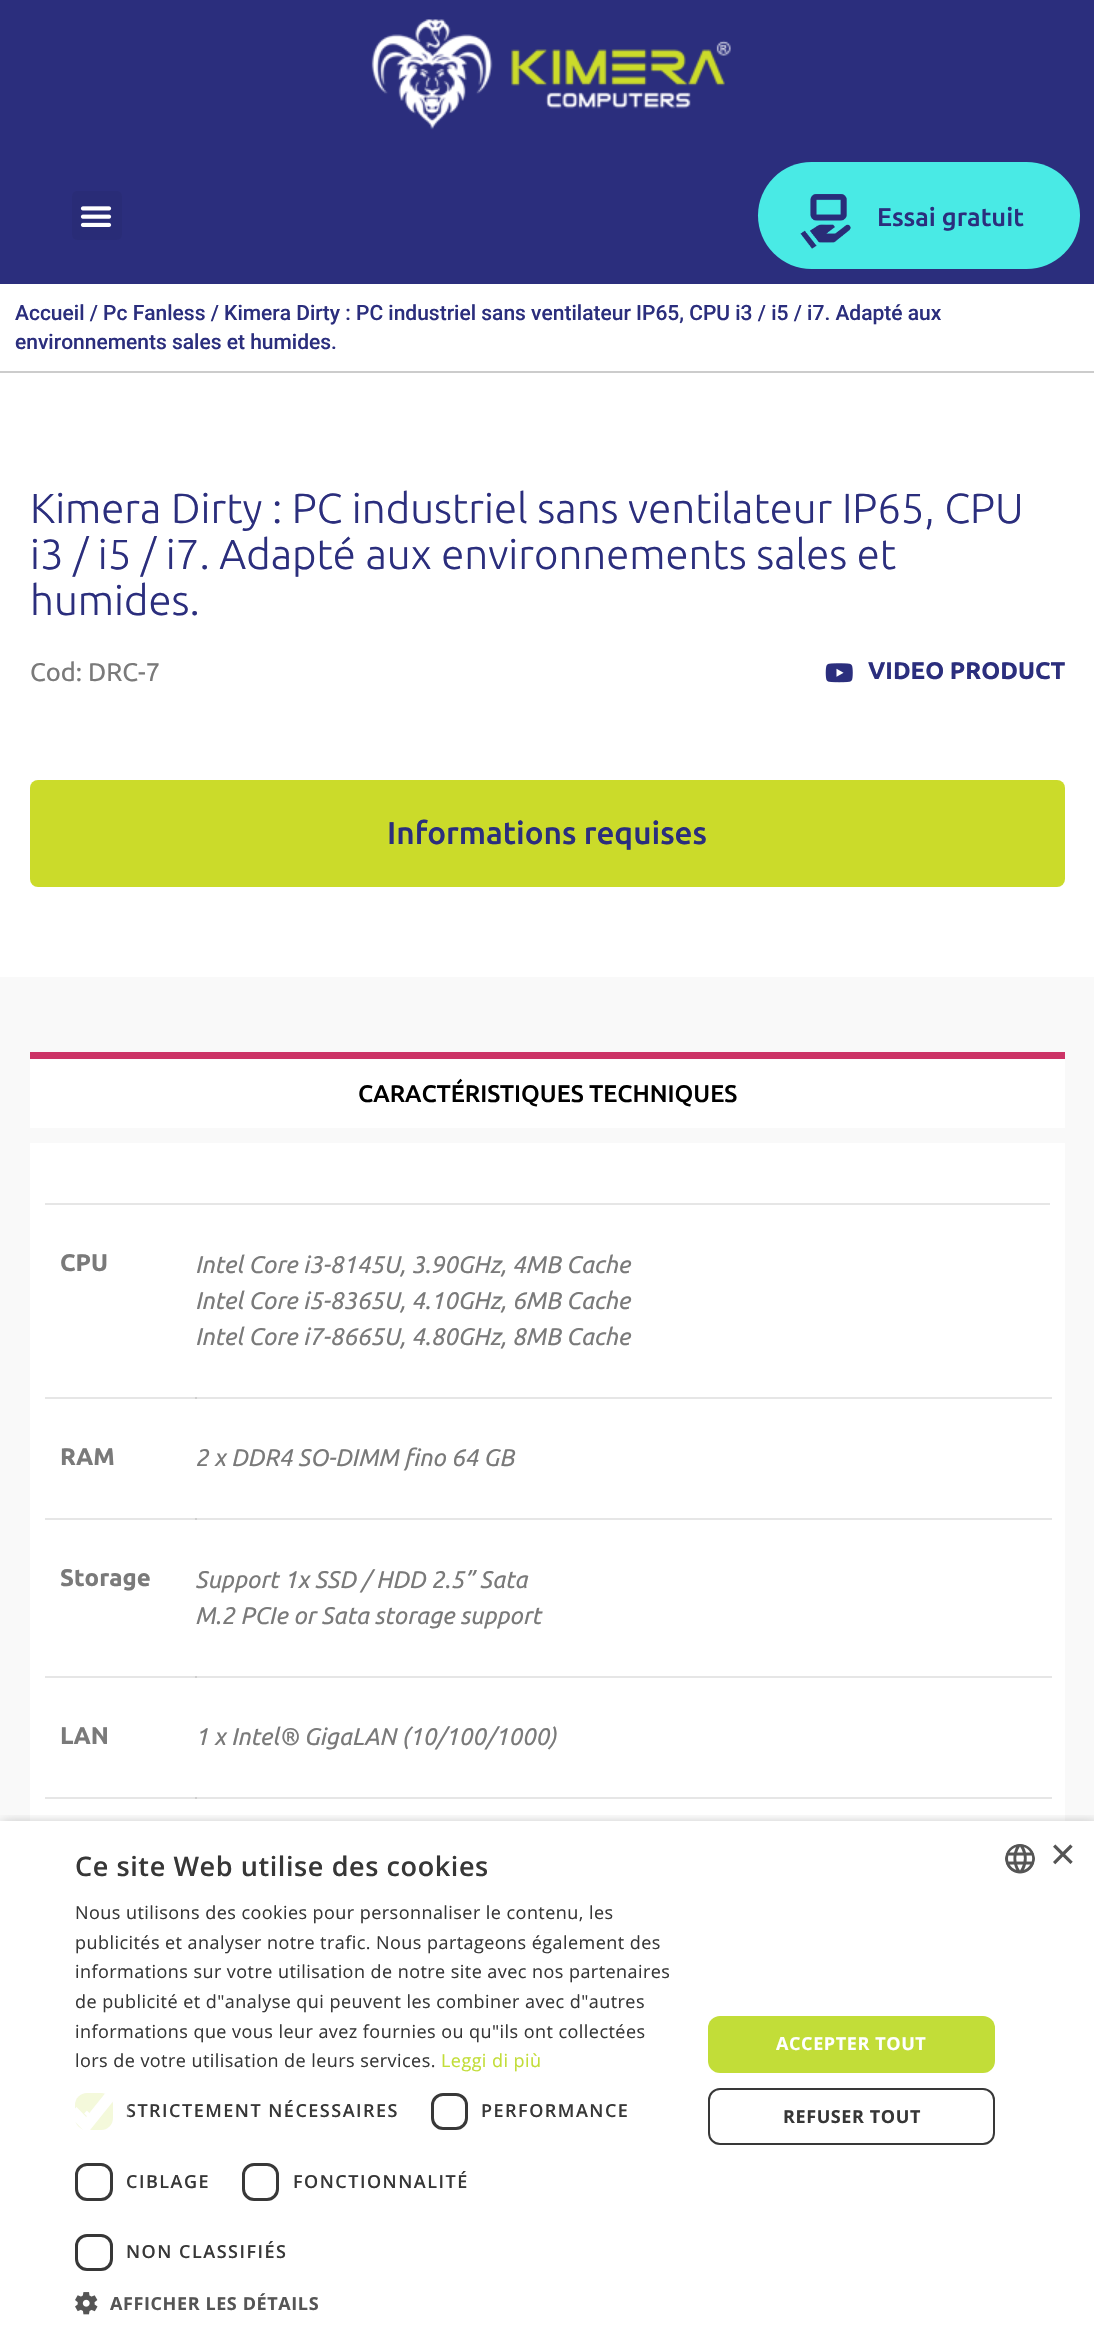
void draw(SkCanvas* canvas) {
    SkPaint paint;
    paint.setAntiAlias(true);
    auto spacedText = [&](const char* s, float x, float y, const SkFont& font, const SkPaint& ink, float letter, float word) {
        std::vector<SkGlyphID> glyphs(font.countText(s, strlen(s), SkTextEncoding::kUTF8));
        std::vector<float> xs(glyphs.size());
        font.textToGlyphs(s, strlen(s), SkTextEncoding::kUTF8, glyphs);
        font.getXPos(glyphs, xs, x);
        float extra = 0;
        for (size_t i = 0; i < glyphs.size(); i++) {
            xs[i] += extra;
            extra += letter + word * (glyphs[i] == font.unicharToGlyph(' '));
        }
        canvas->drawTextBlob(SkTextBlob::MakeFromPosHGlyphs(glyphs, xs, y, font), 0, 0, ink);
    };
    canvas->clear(0xFFFFFFFF);
    paint.setColor(0xFF2B2E7D);
    canvas->drawRect(SkRect::MakeXYWH(0, 0, 1094, 284), paint);
    canvas->drawImageRect(SkImages::DeferredFromEncodedData(SkData::MakeFromFileName("img1.png")), SkRect::MakeXYWH(371, 19, 360, 111), SkSamplingOptions());
    paint.setColor(0xFF292C77);
    canvas->drawRoundRect(SkRect::MakeXYWH(72, 191, 50, 49), 5, 5, paint);
    canvas->drawImageRect(SkImages::DeferredFromEncodedData(SkData::MakeFromFileName("img2.png")), SkRect::MakeXYWH(80, 206, 32, 21), SkSamplingOptions());
    paint.setColor(0xFF49EAE5);
    canvas->drawRoundRect(SkRect::MakeXYWH(758, 162, 322, 107), 53.5f, 53.5f, paint);
    canvas->drawImageRect(SkImages::DeferredFromEncodedData(SkData::MakeFromFileName("img3.png")), SkRect::MakeXYWH(800, 194, 51, 55), SkSamplingOptions());
    SkFont font1(fontMgr->matchFamilyStyle("Ubuntu", SkFontStyle(500, SkFontStyle::kNormal_Width, SkFontStyle::kUpright_Slant)), 25.5f);
    font1.setSubpixel(true);
    paint.setColor(0xFF2B2E7D);
    canvas->drawString("Essai gratuit", 877, 226, font1, paint);
    paint.setColor(0xFFCCCCCC);
    canvas->drawRect(SkRect::MakeXYWH(0, 371, 1094, 2), paint);
    SkFont font2(fontMgr->matchFamilyStyle("Roboto", SkFontStyle(500, SkFontStyle::kNormal_Width, SkFontStyle::kUpright_Slant)), 21);
    font2.setSubpixel(true);
    paint.setColor(0xFF2B2E7D);
    canvas->drawString("Accueil / Pc Fanless / Kimera Dirty : PC industriel sans ventilateur IP65, CPU i3 / i5 / i7. Adapté aux", 15, 320, font2, paint);
    canvas->drawString("environnements sales et humides.", 15, 349, font2, paint);
    SkFont font3(fontMgr->matchFamilyStyle("Ubuntu", SkFontStyle(300, SkFontStyle::kNormal_Width, SkFontStyle::kUpright_Slant)), 42);
    font3.setSubpixel(true);
    canvas->drawString("Kimera Dirty : PC industriel sans ventilateur IP65, CPU", 30, 523, font3, paint);
    canvas->drawString("i3 / i5 / i7. Adapté aux environnements sales et", 30, 569, font3, paint);
    canvas->drawString("humides.", 30, 615, font3, paint);
    SkFont font4(fontMgr->matchFamilyStyle("Ubuntu", SkFontStyle::Normal()), 25.5f);
    font4.setSubpixel(true);
    paint.setColor(0xFF7A7A7A);
    canvas->drawString("Cod: DRC-7", 30, 681, font4, paint);
    canvas->drawImageRect(SkImages::DeferredFromEncodedData(SkData::MakeFromFileName("img4.png")), SkRect::MakeXYWH(825, 663, 28, 20), SkSamplingOptions());
    SkFont font5(fontMgr->matchFamilyStyle("Ubuntu", SkFontStyle::Bold()), 24);
    font5.setSubpixel(true);
    paint.setColor(0xFF2B2E7D);
    canvas->drawString("VIDEO PRODUCT", 868, 679, font5, paint);
    paint.setColor(0xFFCBDB2A);
    canvas->drawRoundRect(SkRect::MakeXYWH(30, 780, 1035, 107), 8, 8, paint);
    SkFont font6(fontMgr->matchFamilyStyle("Ubuntu", SkFontStyle(500, SkFontStyle::kNormal_Width, SkFontStyle::kUpright_Slant)), 31.5f);
    font6.setSubpixel(true);
    paint.setColor(0xFF2B2E7D);
    canvas->drawString("Informations requises", 387, 844, font6, paint);
    paint.setColor(0xFFF9F9F9);
    canvas->drawRect(SkRect::MakeXYWH(0, 977, 1094, 844), paint);
    paint.setColor(0xFFFFFFFF);
    canvas->drawRect(SkRect::MakeXYWH(30, 1059, 1035, 69), paint);
    paint.setColor(0xFFCC3366);
    canvas->drawRect(SkRect::MakeXYWH(30, 1052, 1035, 7), paint);
    SkFont font7(fontMgr->matchFamilyStyle("Ubuntu", SkFontStyle(500, SkFontStyle::kNormal_Width, SkFontStyle::kUpright_Slant)), 24);
    font7.setSubpixel(true);
    paint.setColor(0xFF000000);
    canvas->drawString("CARACTÉRISTIQUES TECHNIQUES", 358, 1102, font7, paint);
    paint.setColor(0xFFFFFFFF);
    canvas->drawRect(SkRect::MakeXYWH(30, 1143, 1035, 678), paint);
    paint.setColor(0xFFE6E6E6);
    canvas->drawRect(SkRect::MakeXYWH(45, 1397, 1007, 2), paint);
    canvas->drawRect(SkRect::MakeXYWH(45, 1518, 1007, 2), paint);
    canvas->drawRect(SkRect::MakeXYWH(45, 1676, 1007, 2), paint);
    canvas->drawRect(SkRect::MakeXYWH(45, 1797, 1007, 2), paint);
    canvas->drawRect(SkRect::MakeXYWH(45, 1203, 1005, 2), paint);
    paint.setColor(0xFF7A7A7A);
    canvas->drawString("CPU", 60, 1271, font5, paint);
    paint.setColor(0xFFCFCFCF);
    canvas->drawRect(SkRect::MakeXYWH(195, 1397, 2, 2), paint);
    SkFont font8(fontMgr->matchFamilyStyle("Ubuntu", SkFontStyle::Italic()), 24);
    font8.setSubpixel(true);
    paint.setColor(0xFF7A7A7A);
    canvas->drawString("Intel Core i3-8145U, 3.90GHz, 4MB Cache", 195, 1273, font8, paint);
    canvas->drawString("Intel Core i5-8365U, 4.10GHz, 6MB Cache", 195, 1309, font8, paint);
    canvas->drawString("Intel Core i7-8665U, 4.80GHz, 8MB Cache", 195, 1345, font8, paint);
    canvas->drawString("RAM", 60, 1465, font5, paint);
    paint.setColor(0xFFCFCFCF);
    canvas->drawRect(SkRect::MakeXYWH(195, 1518, 2, 2), paint);
    paint.setColor(0xFF7A7A7A);
    canvas->drawString("2 x DDR4 SO-DIMM fino 64 GB", 195, 1466, font8, paint);
    canvas->drawString("Storage", 60, 1586, font5, paint);
    paint.setColor(0xFFCFCFCF);
    canvas->drawRect(SkRect::MakeXYWH(195, 1676, 2, 2), paint);
    paint.setColor(0xFF7A7A7A);
    canvas->drawString("Support 1x SSD / HDD 2.5” Sata", 195, 1588, font8, paint);
    canvas->drawString("M.2 PCIe or Sata storage support", 195, 1624, font8, paint);
    canvas->drawString("LAN", 60, 1744, font5, paint);
    paint.setColor(0xFFCFCFCF);
    canvas->drawRect(SkRect::MakeXYWH(195, 1797, 2, 2), paint);
    paint.setColor(0xFF7A7A7A);
    canvas->drawString("1 x Intel® GigaLAN (10/100/1000)", 195, 1745, font8, paint);
    canvas->save();
    canvas->clipRect(SkRect::MakeXYWH(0, 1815, 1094, 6));
    paint.setColor(0x54000000);
    paint.setMaskFilter(SkMaskFilter::MakeBlur(kNormal_SkBlurStyle, 6));
    canvas->drawRect(SkRect::MakeXYWH(2, 1824, 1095, 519), paint);
    paint.setMaskFilter(nullptr);
    canvas->restore();
    SkFont font9(fontMgr->matchFamilyStyle("Open Sans", SkFontStyle(600, SkFontStyle::kNormal_Width, SkFontStyle::kUpright_Slant)), 27);
    font9.setSubpixel(true);
    paint.setColor(0xFF373737);
    spacedText("Ce site Web utilise des cookies", 75, 1876, font9, paint, 0.6f, 0);
    SkFont font10(fontMgr->matchFamilyStyle("Open Sans", SkFontStyle::Normal()), 18);
    font10.setSubpixel(true);
    spacedText("Nous utilisons des cookies pour personnaliser le contenu, les", 75, 1919, font10, paint, 0.45f, 0);
    spacedText("publicités et analyser notre trafic. Nous partageons également des", 75, 1949, font10, paint, 0.45f, 0);
    spacedText("informations sur votre utilisation de notre site avec nos partenaires", 75, 1978, font10, paint, 0.45f, 0);
    spacedText("de publicité et d\"analyse qui peuvent les combiner avec d\"autres", 75, 2008, font10, paint, 0.45f, 0);
    spacedText("informations que vous leur avez fournies ou qu\"ils ont collectées", 75, 2038, font10, paint, 0.45f, 0);
    spacedText("lors de votre utilisation de leurs services.", 75, 2067, font10, paint, 0.45f, 0);
    paint.setColor(0xFFC2DD38);
    spacedText("Leggi di più", 441, 2067, font10, paint, 0.45f, 0);
    paint.setColor(0xFFEFF6CB);
    canvas->drawRoundRect(SkRect::MakeXYWH(75, 2093, 38, 37), 12, 12, paint);
    paint.setStyle(SkPaint::kStroke_Style);
    paint.setStrokeWidth(3.9f);
    paint.setColor(0xFFFFFFFF);
    canvas->drawPath(SkPathBuilder().moveTo(85.5f, 2112).lineTo(90.5f, 2117).lineTo(102, 2105.5f).detach(), paint);
    SkFont font11(fontMgr->matchFamilyStyle("Open Sans", SkFontStyle(600, SkFontStyle::kNormal_Width, SkFontStyle::kUpright_Slant)), 18);
    font11.setSubpixel(true);
    paint.setStyle(SkPaint::kFill_Style);
    paint.setColor(0xFF373737);
    spacedText("STRICTEMENT NÉCESSAIRES", 126, 2117, font11, paint, 1.5f, 0);
    paint.setColor(0x4DFFFFFF);
    canvas->drawRoundRect(SkRect::MakeXYWH(59, 2076, 70, 71), 3, 3, paint);
    paint.setStyle(SkPaint::kStroke_Style);
    paint.setStrokeWidth(11.3f);
    paint.setColor(0xFFFFFFFF);
    canvas->drawPath(SkPathBuilder().moveTo(72.5f, 2111).lineTo(86.5f, 2125.5f).lineTo(115, 2090).detach(), paint);
    paint.setStrokeWidth(3);
    paint.setColor(0xF22D2D2D);
    canvas->drawRoundRect(SkRect::MakeXYWH(432.5f, 2094.5f, 34, 34), 10.5f, 10.5f, paint);
    paint.setStyle(SkPaint::kFill_Style);
    paint.setColor(0xFF373737);
    spacedText("PERFORMANCE", 481, 2117, font11, paint, 1.5f, 0);
    paint.setStyle(SkPaint::kStroke_Style);
    paint.setColor(0xFF383838);
    canvas->drawRoundRect(SkRect::MakeXYWH(76.5f, 2164.5f, 35, 35), 10.5f, 10.5f, paint);
    paint.setStyle(SkPaint::kFill_Style);
    paint.setColor(0xFF373737);
    spacedText("CIBLAGE", 126, 2188, font11, paint, 1.5f, 0);
    paint.setStyle(SkPaint::kStroke_Style);
    paint.setColor(0xFF383838);
    canvas->drawRoundRect(SkRect::MakeXYWH(243.5f, 2164.5f, 34, 35), 10.5f, 10.5f, paint);
    paint.setStyle(SkPaint::kFill_Style);
    paint.setColor(0xFF373737);
    spacedText("FONCTIONNALITÉ", 293, 2188, font11, paint, 1.5f, 0);
    paint.setStyle(SkPaint::kStroke_Style);
    canvas->drawRoundRect(SkRect::MakeXYWH(76.5f, 2235.5f, 35, 34), 10.5f, 10.5f, paint);
    paint.setStyle(SkPaint::kFill_Style);
    spacedText("NON CLASSIFIÉS", 126, 2258, font11, paint, 1.5f, 0);
    canvas->drawImageRect(SkImages::DeferredFromEncodedData(SkData::MakeFromFileName("img5.png")), SkRect::MakeXYWH(75, 2292, 23, 23), SkSamplingOptions());
    SkFont font12(fontMgr->matchFamilyStyle("Open Sans", SkFontStyle::Bold()), 18);
    font12.setSubpixel(true);
    paint.setColor(0xFF555555);
    spacedText("AFFICHER LES DÉTAILS", 110, 2310, font12, paint, 0.6f, 0);
    paint.setColor(0xFFC2DD38);
    canvas->drawRoundRect(SkRect::MakeXYWH(708, 2016, 287, 57), 12, 12, paint);
    paint.setColor(0xFFFFFFFF);
    spacedText("ACCEPTER TOUT", 776, 2050, font12, paint, 0.6f, 0);
    paint.setStyle(SkPaint::kStroke_Style);
    paint.setStrokeWidth(2);
    paint.setColor(0xFF383838);
    canvas->drawRoundRect(SkRect::MakeXYWH(709, 2089, 285, 55), 11, 11, paint);
    paint.setStyle(SkPaint::kFill_Style);
    paint.setColor(0xFF373737);
    spacedText("REFUSER TOUT", 783, 2123, font12, paint, 0.6f, 0);
    canvas->drawImageRect(SkImages::DeferredFromEncodedData(SkData::MakeFromFileName("img6.png")), SkRect::MakeXYWH(1005, 1844, 30, 30), SkSamplingOptions());
    SkFont font13(fontMgr->matchFamilyStyle("Liberation Sans", SkFontStyle::Normal()), 44);
    font13.setSubpixel(true);
    paint.setColor(0xFF555555);
    canvas->drawString("×", 1050, 1869, font13, paint);
}
